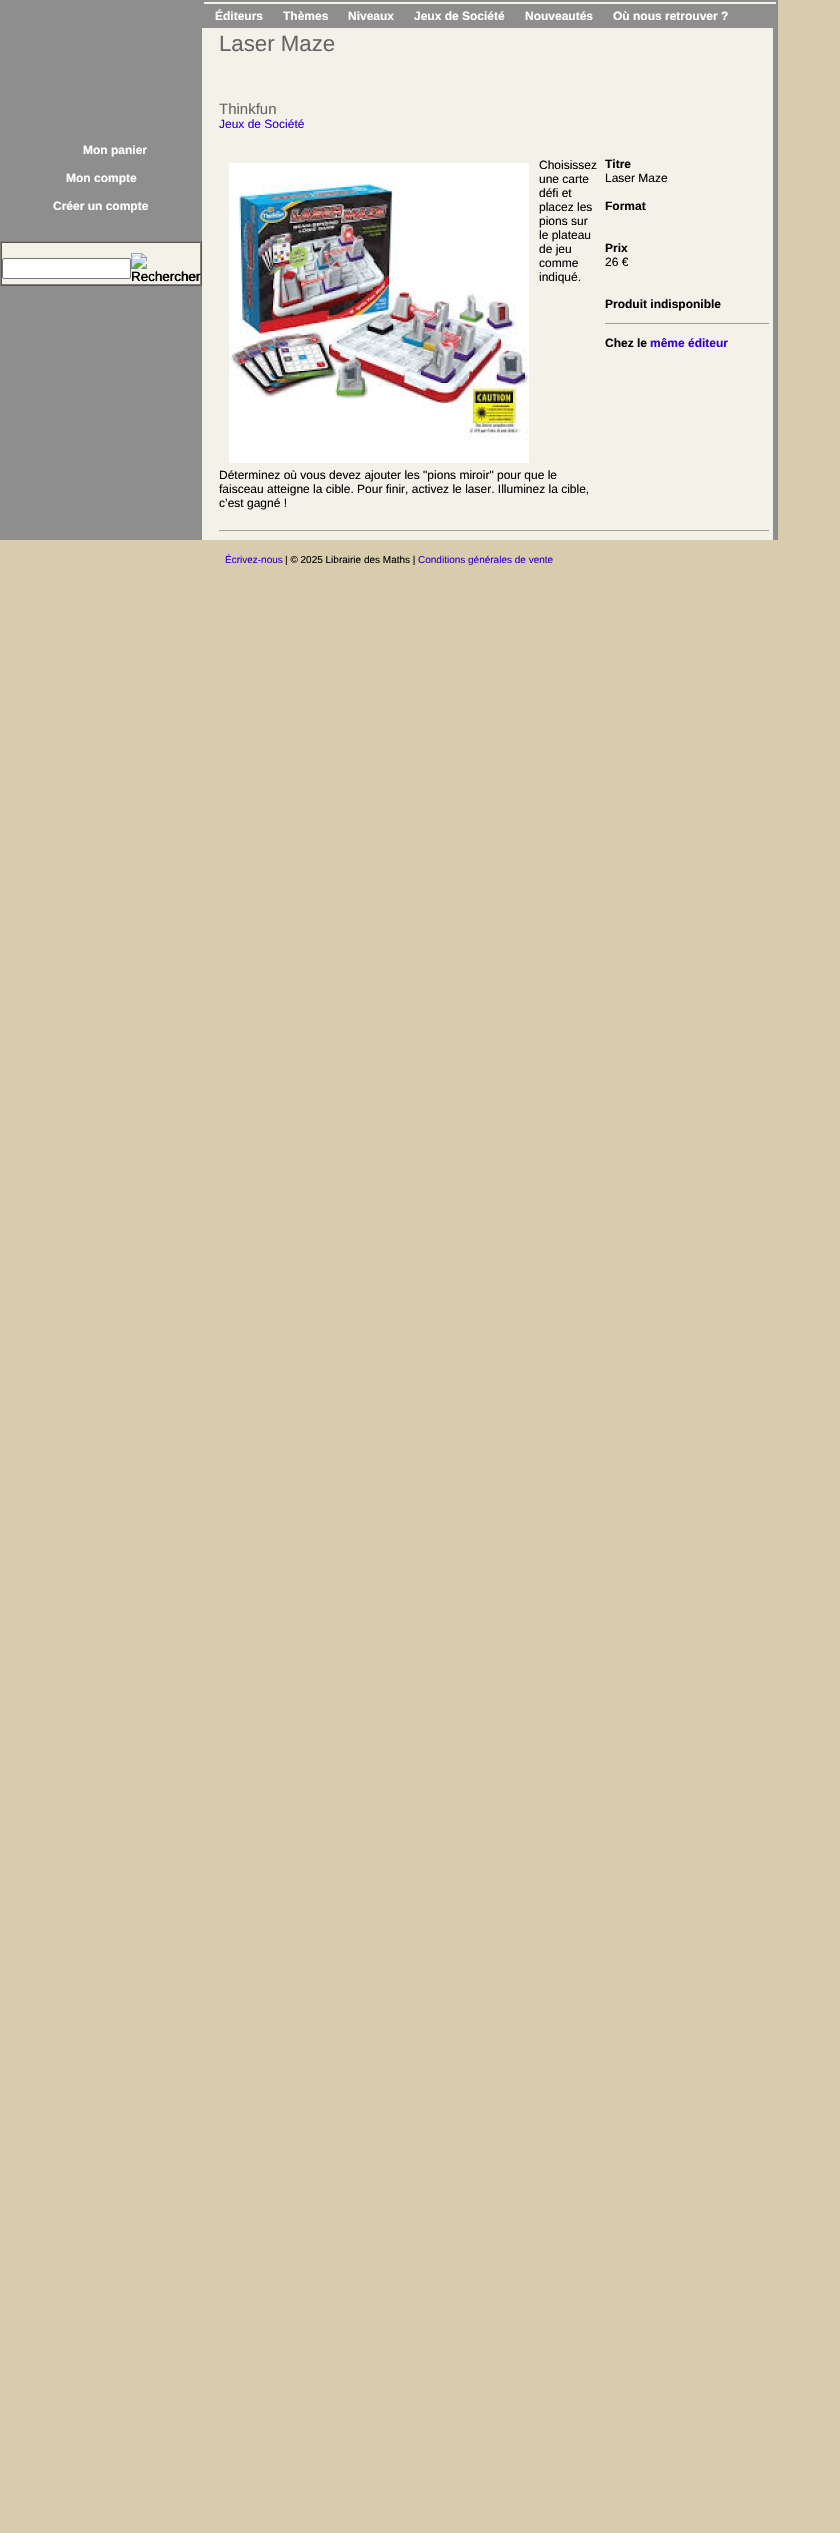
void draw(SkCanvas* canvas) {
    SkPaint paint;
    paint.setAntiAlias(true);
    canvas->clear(0xFFD9CCAD);
    paint.setColor(0xFF8E8E8E);
    canvas->drawRect(SkRect::MakeXYWH(202, 0, 576, 28), paint);
    paint.setColor(0xFFF4F1E8);
    canvas->drawRect(SkRect::MakeXYWH(204, 2, 572, 2), paint);
    SkFont font1(fontMgr->matchFamilyStyle("Liberation Sans", SkFontStyle::Bold()), 12);
    font1.setSubpixel(true);
    paint.setColor(0xFFFFFFFF);
    canvas->drawString("Éditeurs", 215, 20, font1, paint);
    canvas->drawString("Thèmes", 283, 20, font1, paint);
    canvas->drawString("Niveaux", 348, 20, font1, paint);
    canvas->drawString("Jeux de Société", 414, 20, font1, paint);
    canvas->drawString("Nouveautés", 525, 20, font1, paint);
    canvas->drawString("Où nous retrouver ?", 613, 20, font1, paint);
    paint.setColor(0xFF8E8E8E);
    canvas->drawRect(SkRect::MakeXYWH(0, 0, 202, 540), paint);
    paint.setColor(0xFFFFFFFF);
    canvas->drawString("Mon panier", 83, 154, font1, paint);
    canvas->drawString("Mon compte", 66, 182, font1, paint);
    canvas->drawString("Créer un compte", 53, 210, font1, paint);
    paint.setColor(0xFFF4F1E8);
    canvas->drawRect(SkRect::MakeXYWH(2, 243, 198, 41), paint);
    paint.setColor(0xFF808080);
    canvas->drawRect(SkRect::MakeXYWH(0, 241, 202, 1), paint);
    paint.setColor(0xFF555555);
    canvas->drawRect(SkRect::MakeXYWH(201, 241, 1, 45), paint);
    canvas->drawRect(SkRect::MakeXYWH(0, 285, 202, 1), paint);
    paint.setColor(0xFF808080);
    canvas->drawRect(SkRect::MakeXYWH(0, 241, 1, 45), paint);
    paint.setColor(0xFF555555);
    canvas->drawRect(SkRect::MakeXYWH(1, 242, 200, 1), paint);
    paint.setColor(0xFF808080);
    canvas->drawRect(SkRect::MakeXYWH(200, 242, 1, 43), paint);
    canvas->drawRect(SkRect::MakeXYWH(1, 284, 200, 1), paint);
    paint.setColor(0xFF555555);
    canvas->drawRect(SkRect::MakeXYWH(1, 242, 1, 43), paint);
    paint.setColor(0xFFFFFFFF);
    canvas->drawRoundRect(SkRect::MakeXYWH(2.5f, 258.5f, 128, 20), 1.5f, 1.5f, paint);
    paint.setStyle(SkPaint::kStroke_Style);
    paint.setStrokeWidth(1);
    paint.setColor(0xFF767676);
    canvas->drawRoundRect(SkRect::MakeXYWH(2.5f, 258.5f, 128, 20), 1.5f, 1.5f, paint);
    canvas->drawImageRect(SkImages::DeferredFromEncodedData(SkData::MakeFromFileName("img1.png")), SkRect::MakeXYWH(131, 253, 69, 28), SkSamplingOptions());
    SkFont font2(fontMgr->matchFamilyStyle("Liberation Sans", SkFontStyle::Normal()), 13.5f);
    font2.setSubpixel(true);
    paint.setStyle(SkPaint::kFill_Style);
    paint.setColor(0xFF000000);
    canvas->drawString("Rechercher", 131, 281, font2, paint);
    paint.setColor(0xFFF4F1E8);
    canvas->drawRect(SkRect::MakeXYWH(202, 28, 571, 512), paint);
    SkFont font3(fontMgr->matchFamilyStyle("Liberation Sans", SkFontStyle::Normal()), 22.25f);
    font3.setSubpixel(true);
    paint.setColor(0xFF666666);
    canvas->drawString("Laser Maze", 219, 51, font3, paint);
    SkFont font4(fontMgr->matchFamilyStyle("Liberation Sans", SkFontStyle::Normal()), 15);
    font4.setSubpixel(true);
    canvas->drawString("Thinkfun", 219, 114, font4, paint);
    SkFont font5(fontMgr->matchFamilyStyle("Liberation Sans", SkFontStyle::Normal()), 12);
    font5.setSubpixel(true);
    paint.setColor(0xFF3300CC);
    canvas->drawString("Jeux de Société", 219, 128, font5, paint);
    canvas->drawImageRect(SkImages::DeferredFromEncodedData(SkData::MakeFromFileName("img2.png")), SkRect::MakeXYWH(229, 163, 300, 300), SkSamplingOptions());
    paint.setColor(0xFF000000);
    canvas->drawString("Choisissez", 539, 169, font5, paint);
    canvas->drawString("une carte", 539, 183, font5, paint);
    canvas->drawString("défi et", 539, 197, font5, paint);
    canvas->drawString("placez les", 539, 211, font5, paint);
    canvas->drawString("pions sur", 539, 225, font5, paint);
    canvas->drawString("le plateau", 539, 239, font5, paint);
    canvas->drawString("de jeu", 539, 253, font5, paint);
    canvas->drawString("comme", 539, 267, font5, paint);
    canvas->drawString("indiqué.", 539, 281, font5, paint);
    canvas->drawString("Déterminez où vous devez ajouter les \"pions miroir\" pour que le", 219, 479, font5, paint);
    canvas->drawString("faisceau atteigne la cible. Pour finir, activez le laser. Illuminez la cible,", 219, 493, font5, paint);
    canvas->drawString("c’est gagné !", 219, 507, font5, paint);
    canvas->drawString("Titre", 605, 168, font1, paint);
    canvas->drawString("Laser Maze", 605, 182, font5, paint);
    canvas->drawString("Format", 605, 210, font1, paint);
    canvas->drawString("Prix", 605, 252, font1, paint);
    canvas->drawString("26 €", 605, 266, font5, paint);
    canvas->drawString("Produit indisponible", 605, 308, font1, paint);
    paint.setColor(0xFF9F9F9F);
    canvas->drawRect(SkRect::MakeXYWH(605, 323, 165, 1), paint);
    paint.setColor(0xFFEEEEEE);
    canvas->drawRect(SkRect::MakeXYWH(769, 323, 1, 1), paint);
    paint.setColor(0xFF000000);
    canvas->drawString("Chez le", 605, 347, font1, paint);
    paint.setColor(0xFF3300CC);
    canvas->drawString("même éditeur", 650, 347, font1, paint);
    paint.setColor(0xFF9F9F9F);
    canvas->drawRect(SkRect::MakeXYWH(219, 530, 551, 1), paint);
    paint.setColor(0xFFEEEEEE);
    canvas->drawRect(SkRect::MakeXYWH(769, 530, 1, 1), paint);
    paint.setColor(0xFF8E8E8E);
    canvas->drawRect(SkRect::MakeXYWH(773, 28, 5, 512), paint);
    SkFont font6(fontMgr->matchFamilyStyle("Liberation Sans", SkFontStyle::Normal()), 10);
    font6.setSubpixel(true);
    paint.setColor(0xFF3300CC);
    canvas->drawString("Écrivez-nous", 225, 563, font6, paint);
    paint.setColor(0xFF000000);
    canvas->drawString("| © 2025 Librairie des Maths |", 285, 563, font6, paint);
    paint.setColor(0xFF3300CC);
    canvas->drawString("Conditions générales de vente", 418, 563, font6, paint);
}
